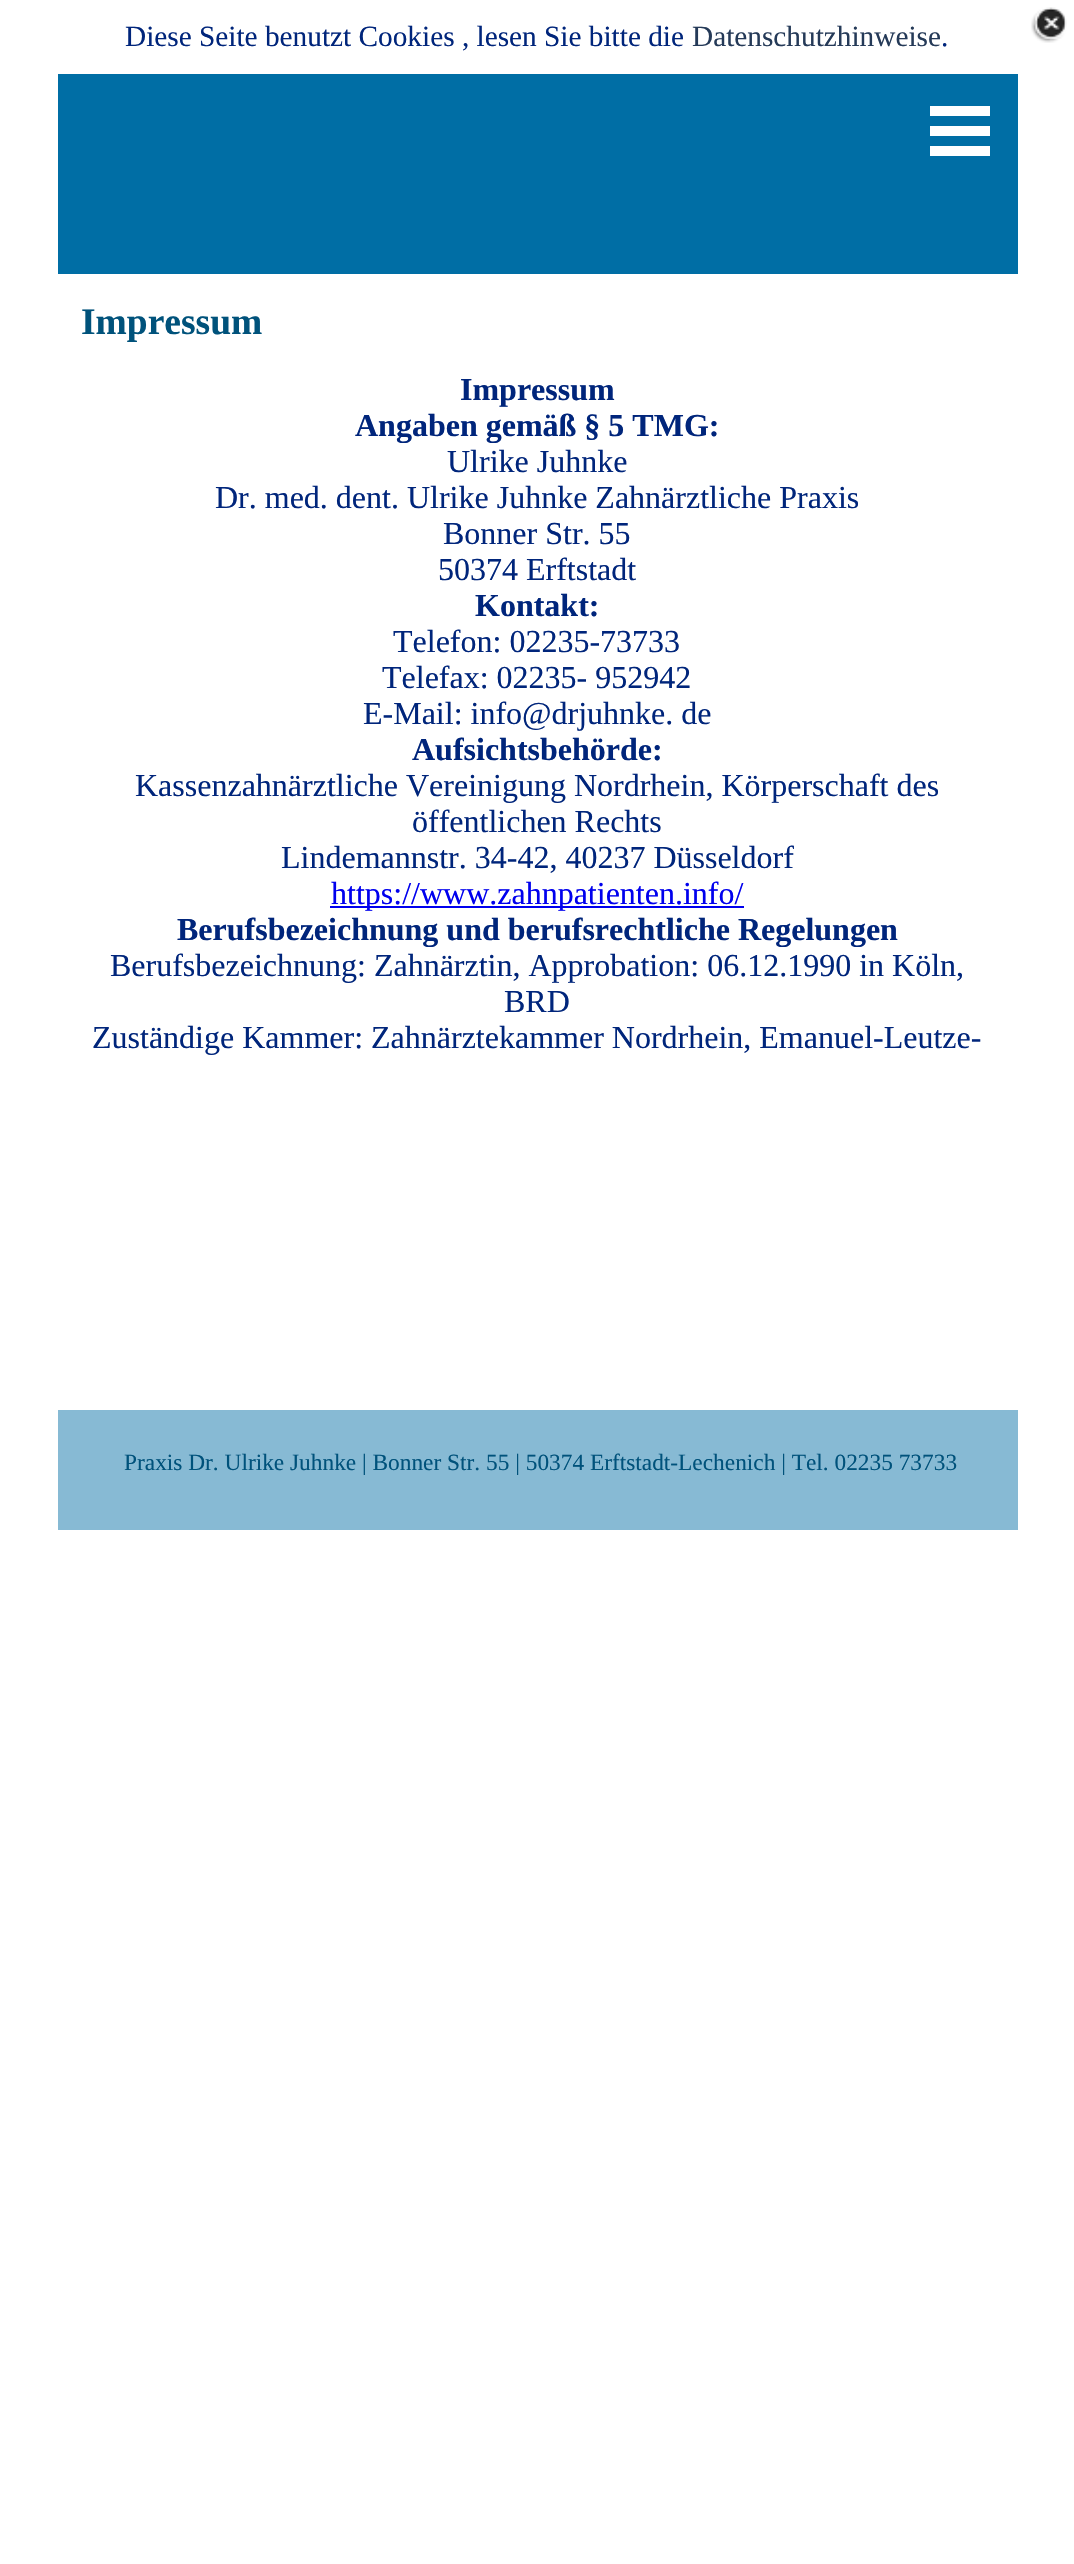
void draw(SkCanvas* canvas) {
    SkPaint paint;
    paint.setAntiAlias(true);
    canvas->clear(0xFFFFFFFF);
    SkFont font1(fontMgr->matchFamilyStyle("Liberation Serif", SkFontStyle::Normal()), 29.3f);
    font1.setSubpixel(true);
    paint.setColor(0xFF00257B);
    canvas->drawString("Diese Seite benutzt Cookies , lesen Sie bitte die", 125, 46, font1, paint);
    paint.setColor(0xFF253A58);
    canvas->drawString("Datenschutzhinweise", 692, 46, font1, paint);
    paint.setColor(0xFF00257B);
    canvas->drawString(".", 941, 46, font1, paint);
    canvas->drawImageRect(SkImages::DeferredFromEncodedData(SkData::MakeFromFileName("img1.png")), SkRect::MakeXYWH(1031, 7, 36, 36), SkSamplingOptions());
    paint.setColor(0xFF006EA5);
    canvas->drawRect(SkRect::MakeXYWH(58, 74, 960, 200), paint);
    paint.setColor(0xFFFFFFFF);
    canvas->drawRect(SkRect::MakeXYWH(930, 106, 60, 10), paint);
    canvas->drawRect(SkRect::MakeXYWH(930, 126, 60, 10), paint);
    canvas->drawRect(SkRect::MakeXYWH(930, 146, 60, 10), paint);
    SkFont font2(fontMgr->matchFamilyStyle("Liberation Serif", SkFontStyle::Bold()), 37.5f);
    font2.setSubpixel(true);
    paint.setColor(0xFF00527B);
    canvas->drawString("Impressum", 81, 334, font2, paint);
    SkFont font3(fontMgr->matchFamilyStyle("Liberation Serif", SkFontStyle::Bold()), 32);
    font3.setSubpixel(true);
    paint.setColor(0xFF00257B);
    canvas->drawString("Impressum", 460, 400, font3, paint);
    canvas->drawString("Angaben gemäß § 5 TMG:", 355, 436, font3, paint);
    SkFont font4(fontMgr->matchFamilyStyle("Liberation Serif", SkFontStyle::Normal()), 32);
    font4.setSubpixel(true);
    canvas->drawString("Ulrike Juhnke", 447, 472, font4, paint);
    canvas->drawString("Dr. med. dent. Ulrike Juhnke Zahnärztliche Praxis", 215, 508, font4, paint);
    canvas->drawString("Bonner Str. 55", 443, 544, font4, paint);
    canvas->drawString("50374 Erftstadt", 438, 580, font4, paint);
    canvas->drawString("Kontakt:", 475, 616, font3, paint);
    canvas->drawString("Telefon: 02235-73733", 393, 652, font4, paint);
    canvas->drawString("Telefax: 02235- 952942", 382, 688, font4, paint);
    canvas->drawString("E-Mail: info@drjuhnke. de", 363, 724, font4, paint);
    canvas->drawString("Aufsichtsbehörde:", 412, 760, font3, paint);
    canvas->drawString("Kassenzahnärztliche Vereinigung Nordrhein, Körperschaft des", 135, 796, font4, paint);
    canvas->drawString("öffentlichen Rechts", 412, 832, font4, paint);
    canvas->drawString("Lindemannstr. 34-42, 40237 Düsseldorf", 281, 868, font4, paint);
    paint.setColor(0xFF0000EE);
    canvas->drawRect(SkRect::MakeXYWH(330, 906, 414, 2), paint);
    canvas->drawString("https://www.zahnpatienten.info/", 331, 904, font4, paint);
    paint.setColor(0xFF00257B);
    canvas->drawString("Berufsbezeichnung und berufsrechtliche Regelungen", 177, 940, font3, paint);
    canvas->drawString("Berufsbezeichnung: Zahnärztin, Approbation: 06.12.1990 in Köln,", 110, 976, font4, paint);
    canvas->drawString("BRD", 504, 1012, font4, paint);
    canvas->drawString("Zuständige Kammer: Zahnärztekammer Nordrhein, Emanuel-Leutze-", 92, 1048, font4, paint);
    paint.setColor(0xFF87BAD4);
    canvas->drawRect(SkRect::MakeXYWH(58, 1410, 960, 120), paint);
    SkFont font5(fontMgr->matchFamilyStyle("Liberation Serif", SkFontStyle::Normal()), 23.35f);
    font5.setSubpixel(true);
    paint.setColor(0xFF00527B);
    canvas->drawString("Praxis Dr. Ulrike Juhnke | Bonner Str. 55 | 50374 Erftstadt-Lechenich | Tel. 02235 73733", 124, 1470, font5, paint);
}
